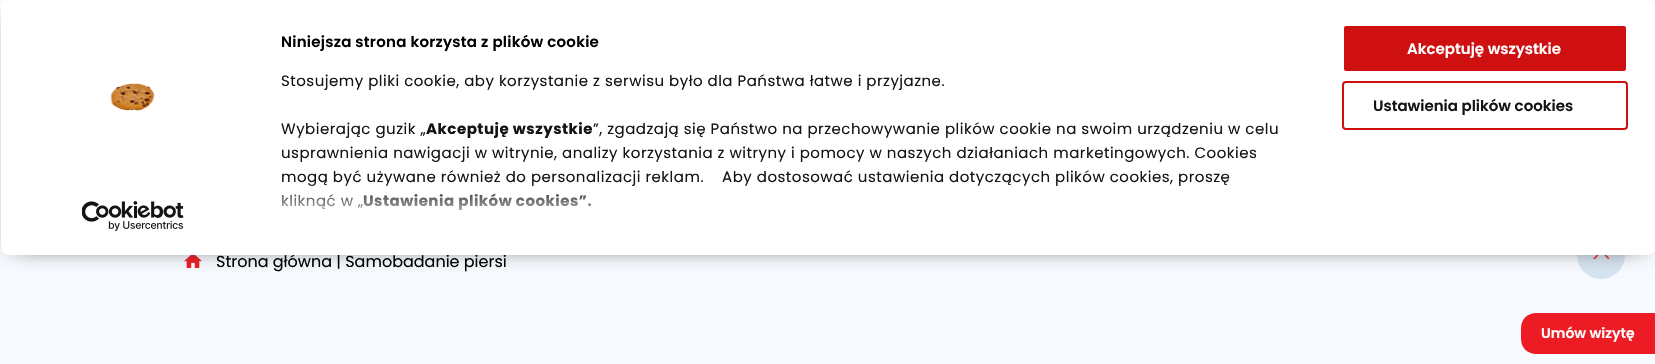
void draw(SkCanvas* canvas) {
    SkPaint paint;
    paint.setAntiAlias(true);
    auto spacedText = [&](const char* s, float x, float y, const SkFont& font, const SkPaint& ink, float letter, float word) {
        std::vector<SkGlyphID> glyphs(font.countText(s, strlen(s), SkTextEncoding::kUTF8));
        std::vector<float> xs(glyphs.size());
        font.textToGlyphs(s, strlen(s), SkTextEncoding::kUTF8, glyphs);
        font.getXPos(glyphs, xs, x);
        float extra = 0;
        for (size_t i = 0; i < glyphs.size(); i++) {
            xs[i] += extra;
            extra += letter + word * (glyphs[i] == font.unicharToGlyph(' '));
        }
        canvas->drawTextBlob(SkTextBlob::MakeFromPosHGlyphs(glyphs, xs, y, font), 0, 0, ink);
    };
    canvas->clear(0xFFFFFFFF);
    paint.setColor(0xFFF7FAFF);
    canvas->drawRect(SkRect::MakeXYWH(0, 230, 1655, 134), paint);
    canvas->drawImageRect(SkImages::DeferredFromEncodedData(SkData::MakeFromFileName("img3.png")), SkRect::MakeXYWH(184, 255, 18, 13), SkSamplingOptions());
    paint.setColor(0xFFD6E3F0);
    canvas->drawCircle(1601, 255, 24, paint);
    canvas->save();
    canvas->clipRect(SkRect::MakeXYWH(1593, 250, 16, 9));
    paint.setStyle(SkPaint::kStroke_Style);
    paint.setStrokeWidth(1.5f);
    paint.setStrokeCap(SkPaint::kRound_Cap);
    paint.setStrokeJoin(SkPaint::kRound_Join);
    paint.setColor(0xFFED1C24);
    canvas->drawPath(SkPathBuilder().moveTo(1594, 259).lineTo(1601.5f, 251).lineTo(1609, 259).detach(), paint);
    canvas->restore();
    paint.setStyle(SkPaint::kFill_Style);
    paint.setColor(0xFF353535);
    paint.setMaskFilter(SkMaskFilter::MakeBlur(kNormal_SkBlurStyle, 11));
    canvas->drawRect(SkRect::MakeXYWH(13, 15, 1631, 231), paint);
    paint.setMaskFilter(nullptr);
    SkFont font1(fontMgr->matchFamilyStyle("Poppins", SkFontStyle::Normal()), 16);
    font1.setSubpixel(true);
    paint.setColor(0xFF000000);
    canvas->drawString("Strona główna | Samobadanie piersi", 216, 267, font1, paint);
    paint.setColor(0xFFFFFFFF);
    canvas->drawRoundRect(SkRect::MakeXYWH(1, 0, 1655, 255), 8, 8, paint);
    canvas->drawImageRect(SkImages::DeferredFromEncodedData(SkData::MakeFromFileName("img1.png")), SkRect::MakeXYWH(110, 83, 45, 28), SkSamplingOptions());
    canvas->drawImageRect(SkImages::DeferredFromEncodedData(SkData::MakeFromFileName("img2.png")), SkRect::MakeXYWH(82, 201, 102, 30), SkSamplingOptions());
    SkFont font2(fontMgr->matchFamilyStyle("Poppins", SkFontStyle(600, SkFontStyle::kNormal_Width, SkFontStyle::kUpright_Slant)), 15);
    font2.setSubpixel(true);
    paint.setColor(0xFF000000);
    spacedText("Niniejsza strona korzysta z plików cookie", 281, 47, font2, paint, 0.25f, 0);
    SkFont font3(fontMgr->matchFamilyStyle("Poppins", SkFontStyle::Normal()), 15);
    font3.setSubpixel(true);
    paint.setColor(0xFF141414);
    spacedText("Stosujemy pliki cookie, aby korzystanie z serwisu było dla Państwa łatwe i przyjazne.", 281, 86, font3, paint, 0.5f, 0);
    spacedText("Wybierając guzik „", 281, 134, font3, paint, 0.5f, 0);
    SkFont font4(fontMgr->matchFamilyStyle("Poppins", SkFontStyle::Bold()), 15);
    font4.setSubpixel(true);
    spacedText("Akceptuję wszystkie", 426, 134, font4, paint, 0.5f, 0);
    spacedText("”, zgadzają się Państwo na przechowywanie plików cookie na swoim urządzeniu w celu", 593, 134, font3, paint, 0.5f, 0);
    spacedText("usprawnienia nawigacji w witrynie, analizy korzystania z witryny i pomocy w naszych działaniach marketingowych. Cookies", 281, 158, font3, paint, 0.5f, 0);
    spacedText("mogą być używane również do personalizacji reklam.    Aby dostosować ustawienia dotyczących plików cookies, proszę", 281, 182, font3, paint, 0.5f, 0);
    spacedText("kliknąć w „", 281, 206, font3, paint, 0.5f, 0);
    spacedText("Ustawienia plików cookies”.", 363, 206, font4, paint, 0.5f, 0);
    {
        const SkColor colors[] = {0xFFFFFFFF, 0xCCFFFFFF, 0x00FFFFFF};
        const float stops[] = {0, 0.5f, 1};
        const SkPoint ends[] = {{780, 257}, {780, 182}};
        paint.setShader(SkGradientShader::MakeLinear(ends, colors, stops, 3, SkTileMode::kClamp));
        paint.setAlpha(255);
    }
    canvas->drawRect(SkRect::MakeXYWH(281, 183, 946, 27), paint);
    paint.setShader(nullptr);
    paint.setColor(0xFFCF1010);
    canvas->drawRoundRect(SkRect::MakeXYWH(1343, 25, 284, 47), 3, 3, paint);
    paint.setStyle(SkPaint::kStroke_Style);
    paint.setStrokeWidth(2);
    paint.setStrokeCap(SkPaint::kButt_Cap);
    paint.setStrokeJoin(SkPaint::kMiter_Join);
    paint.setColor(0xFFFFFFFF);
    canvas->drawRoundRect(SkRect::MakeXYWH(1343, 25, 284, 47), 3, 3, paint);
    paint.setStyle(SkPaint::kFill_Style);
    canvas->drawString("Akceptuję wszystkie", 1407, 54, font2, paint);
    paint.setStyle(SkPaint::kStroke_Style);
    paint.setColor(0xFFCF1010);
    canvas->drawRoundRect(SkRect::MakeXYWH(1343, 82, 284, 47), 3, 3, paint);
    paint.setStyle(SkPaint::kFill_Style);
    paint.setColor(0xFF141414);
    canvas->drawString("Ustawienia plików cookies", 1373, 111, font2, paint);
    paint.setColor(0xFFED1C24);
    canvas->drawPath(SkPathBuilder().moveTo(1536, 313).lineTo(1655, 313).lineTo(1655, 354).lineTo(1536, 354).cubicTo(1527.5f, 354, 1521, 347.5f, 1521, 339).lineTo(1521, 328).cubicTo(1521, 319.5f, 1527.5f, 313, 1536, 313).close().detach(), paint);
    SkFont font5(fontMgr->matchFamilyStyle("Poppins", SkFontStyle(600, SkFontStyle::kNormal_Width, SkFontStyle::kUpright_Slant)), 14);
    font5.setSubpixel(true);
    paint.setColor(0xFFFFFFFF);
    canvas->drawString("Umów wizytę", 1541, 338, font5, paint);
}
